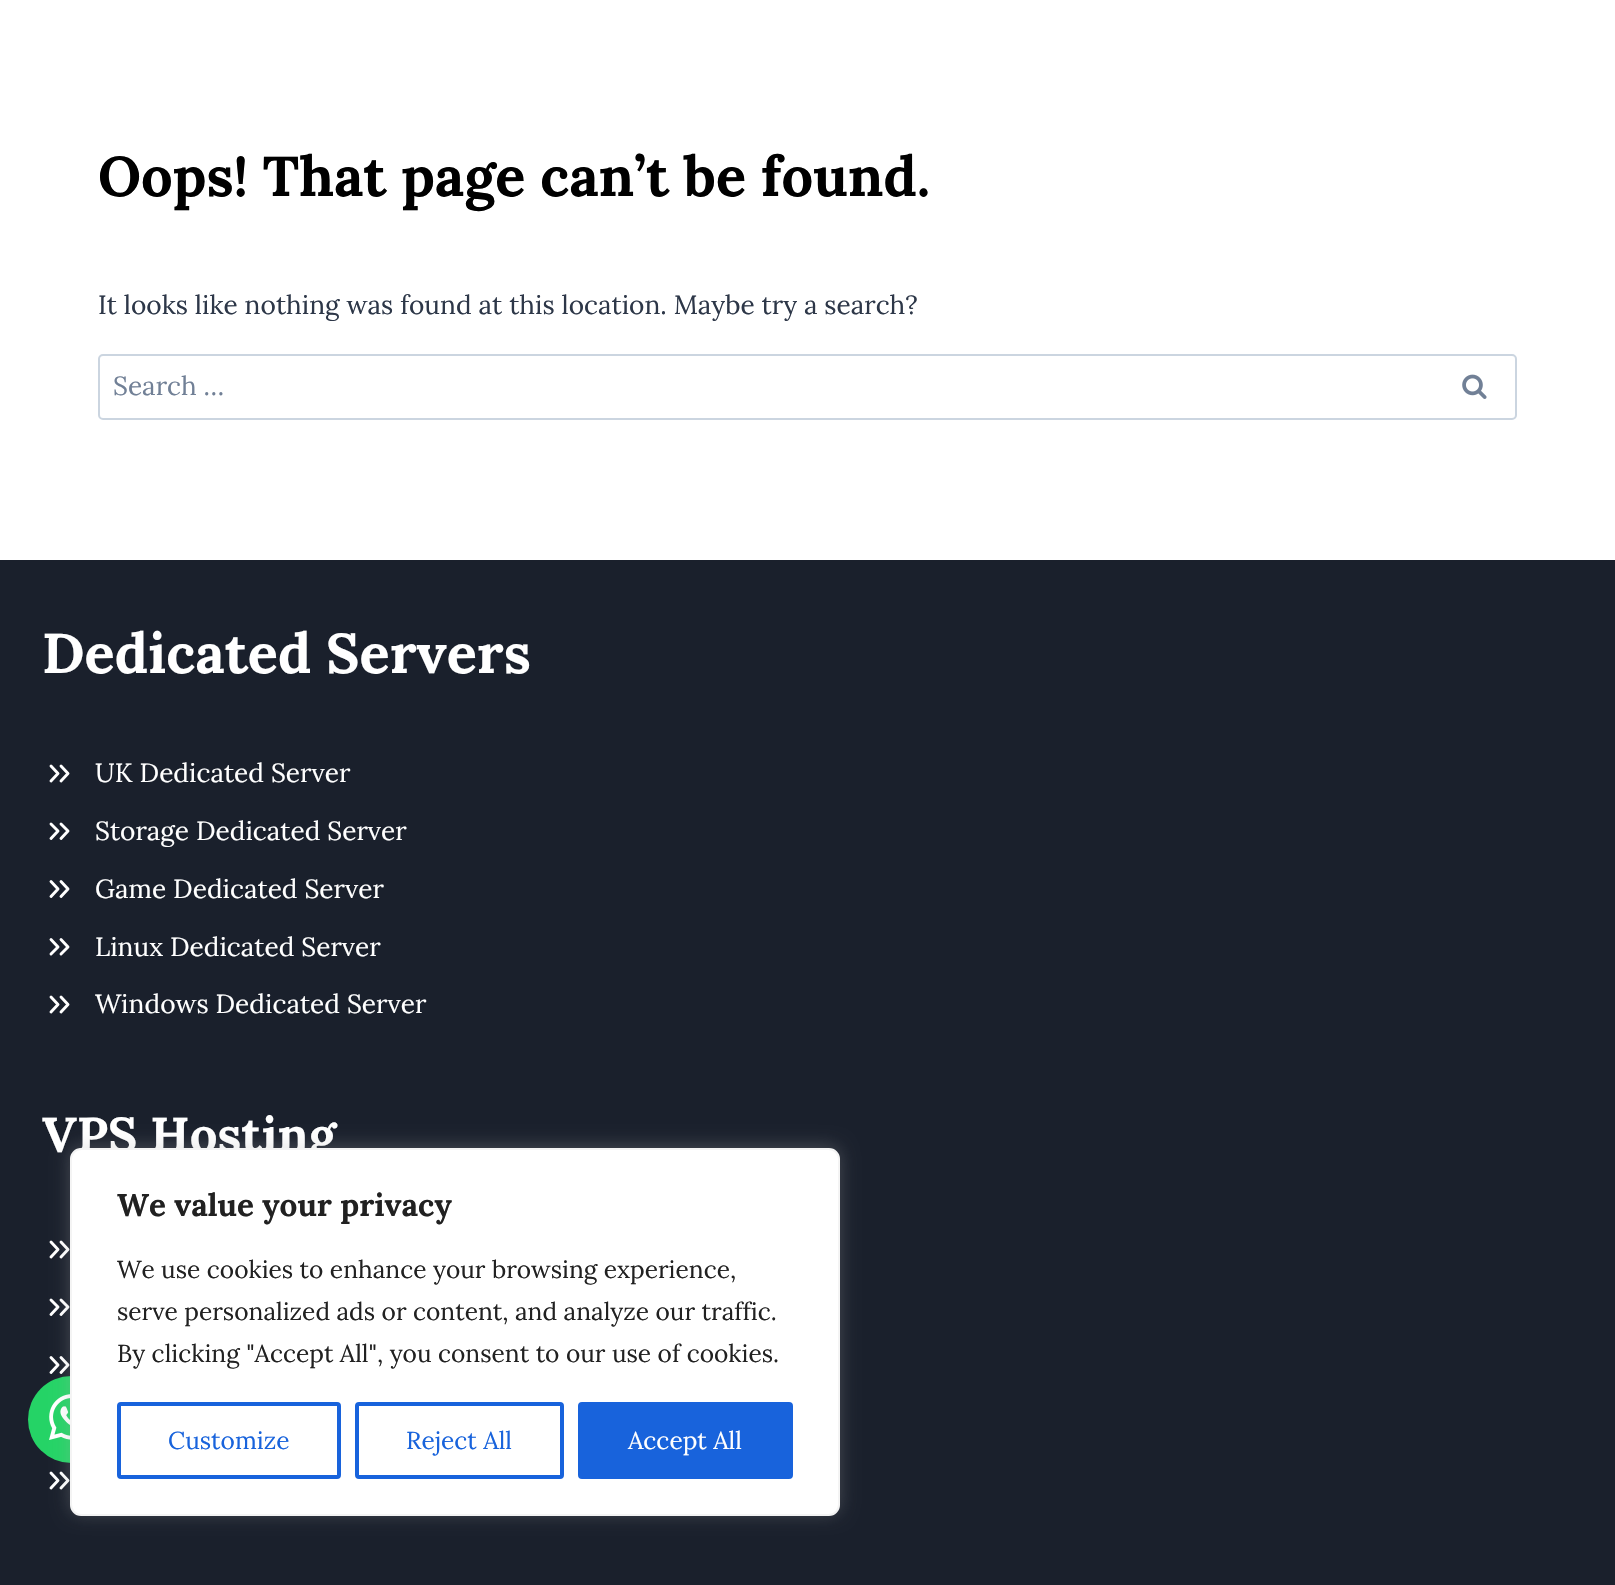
void draw(SkCanvas* canvas) {
    SkPaint paint;
    paint.setAntiAlias(true);
    canvas->clear(0xFFFFFFFF);
    SkFont font1(fontMgr->matchFamilyStyle("Lora", SkFontStyle::Bold()), 56);
    font1.setSubpixel(true);
    paint.setColor(0xFF000000);
    canvas->drawString("Oops! That page can’t be found.", 98, 196, font1, paint);
    SkFont font2(fontMgr->matchFamilyStyle("Lora", SkFontStyle::Normal()), 26.25f);
    font2.setSubpixel(true);
    paint.setColor(0xFF2D3748);
    canvas->drawString("It looks like nothing was found at this location. Maybe try a search?", 98, 314, font2, paint);
    paint.setStyle(SkPaint::kStroke_Style);
    paint.setStrokeWidth(2);
    paint.setColor(0xFFCBD5E0);
    canvas->drawRoundRect(SkRect::MakeXYWH(99, 355, 1417, 64), 4, 4, paint);
    paint.setStyle(SkPaint::kFill_Style);
    paint.setColor(0xFF718096);
    canvas->drawString("Search …", 113, 395, font2, paint);
    canvas->drawImageRect(SkImages::DeferredFromEncodedData(SkData::MakeFromFileName("img1.png")), SkRect::MakeXYWH(1462, 374, 25, 25), SkSamplingOptions());
    paint.setColor(0xFF1A202C);
    canvas->drawRect(SkRect::MakeXYWH(0, 560, 1615, 1025), paint);
    paint.setColor(0xFFFFFFFF);
    canvas->drawString("Dedicated Servers", 42, 673, font1, paint);
    paint.setStyle(SkPaint::kStroke_Style);
    paint.setStrokeWidth(2.9f);
    paint.setStrokeCap(SkPaint::kRound_Cap);
    paint.setStrokeJoin(SkPaint::kRound_Join);
    canvas->drawPath(SkPathBuilder().moveTo(61, 781).lineTo(68, 773.5f).lineTo(61, 766).moveTo(51, 781).lineTo(58, 773.5f).lineTo(51, 766).detach(), paint);
    paint.setStyle(SkPaint::kFill_Style);
    canvas->drawString("UK Dedicated Server", 95, 782, font2, paint);
    paint.setStyle(SkPaint::kStroke_Style);
    canvas->drawPath(SkPathBuilder().moveTo(61, 838.5f).lineTo(68, 831).lineTo(61, 824).moveTo(51, 838.5f).lineTo(58, 831).lineTo(51, 824).detach(), paint);
    paint.setStyle(SkPaint::kFill_Style);
    canvas->drawString("Storage Dedicated Server", 95, 840, font2, paint);
    paint.setStyle(SkPaint::kStroke_Style);
    canvas->drawPath(SkPathBuilder().moveTo(61, 896.5f).lineTo(68, 889).lineTo(61, 881.5f).moveTo(51, 896.5f).lineTo(58, 889).lineTo(51, 881.5f).detach(), paint);
    paint.setStyle(SkPaint::kFill_Style);
    canvas->drawString("Game Dedicated Server", 95, 898, font2, paint);
    paint.setStyle(SkPaint::kStroke_Style);
    canvas->drawPath(SkPathBuilder().moveTo(61, 954).lineTo(68, 947).lineTo(61, 939.5f).moveTo(51, 954).lineTo(58, 947).lineTo(51, 939.5f).detach(), paint);
    paint.setStyle(SkPaint::kFill_Style);
    canvas->drawString("Linux Dedicated Server", 95, 956, font2, paint);
    paint.setStyle(SkPaint::kStroke_Style);
    canvas->drawPath(SkPathBuilder().moveTo(61, 1012).lineTo(68, 1004.5f).lineTo(61, 997).moveTo(51, 1012).lineTo(58, 1004.5f).lineTo(51, 997).detach(), paint);
    paint.setStyle(SkPaint::kFill_Style);
    canvas->drawString("Windows Dedicated Server", 95, 1013, font2, paint);
    SkFont font3(fontMgr->matchFamilyStyle("Lora", SkFontStyle::Bold()), 49);
    font3.setSubpixel(true);
    canvas->drawString("VPS Hosting", 42, 1152, font3, paint);
    paint.setStyle(SkPaint::kStroke_Style);
    canvas->drawPath(SkPathBuilder().moveTo(61, 1257).lineTo(68, 1249.5f).lineTo(61, 1242).moveTo(51, 1257).lineTo(58, 1249.5f).lineTo(51, 1242).detach(), paint);
    canvas->drawPath(SkPathBuilder().moveTo(61, 1314.5f).lineTo(68, 1307).lineTo(61, 1300).moveTo(51, 1314.5f).lineTo(58, 1307).lineTo(51, 1300).detach(), paint);
    canvas->drawPath(SkPathBuilder().moveTo(61, 1372.5f).lineTo(68, 1365).lineTo(61, 1357.5f).moveTo(51, 1372.5f).lineTo(58, 1365).lineTo(51, 1357.5f).detach(), paint);
    canvas->drawPath(SkPathBuilder().moveTo(61, 1488).lineTo(68, 1480.5f).lineTo(61, 1473).moveTo(51, 1488).lineTo(58, 1480.5f).lineTo(51, 1473).detach(), paint);
    paint.setStyle(SkPaint::kFill_Style);
    paint.setColor(0xFF25D366);
    canvas->drawRoundRect(SkRect::MakeXYWH(28, 1376, 88, 87), 43.5f, 43.5f, paint);
    canvas->drawImageRect(SkImages::DeferredFromEncodedData(SkData::MakeFromFileName("img2.png")), SkRect::MakeXYWH(49, 1394, 21, 46), SkSamplingOptions());
    paint.setColor(0x4DACABAB);
    paint.setMaskFilter(SkMaskFilter::MakeBlur(kNormal_SkBlurStyle, 9));
    canvas->drawRoundRect(SkRect::MakeXYWH(70, 1146, 770, 368), 11, 11, paint);
    paint.setMaskFilter(nullptr);
    paint.setColor(0xFFFFFFFF);
    canvas->drawRoundRect(SkRect::MakeXYWH(71, 1149, 768, 366), 10, 10, paint);
    paint.setStyle(SkPaint::kStroke_Style);
    paint.setStrokeWidth(2);
    paint.setStrokeCap(SkPaint::kButt_Cap);
    paint.setStrokeJoin(SkPaint::kMiter_Join);
    paint.setColor(0xFFF4F4F4);
    canvas->drawRoundRect(SkRect::MakeXYWH(71, 1149, 768, 366), 10, 10, paint);
    SkFont font4(fontMgr->matchFamilyStyle("Lora", SkFontStyle::Bold()), 31.5f);
    font4.setSubpixel(true);
    paint.setStyle(SkPaint::kFill_Style);
    paint.setColor(0xFF212121);
    canvas->drawString("We value your privacy", 117, 1216, font4, paint);
    SkFont font5(fontMgr->matchFamilyStyle("Lora", SkFontStyle::Normal()), 24.5f);
    font5.setSubpixel(true);
    canvas->drawString("We use cookies to enhance your browsing experience,", 117, 1278, font5, paint);
    canvas->drawString("serve personalized ads or content, and analyze our traffic.", 117, 1320, font5, paint);
    canvas->drawString("By clicking \"Accept All\", you consent to our use of cookies.", 117, 1362, font5, paint);
    paint.setStyle(SkPaint::kStroke_Style);
    paint.setStrokeWidth(4);
    paint.setColor(0xFF1863DC);
    canvas->drawRoundRect(SkRect::MakeXYWH(119, 1404, 220, 73), 2, 2, paint);
    paint.setStyle(SkPaint::kFill_Style);
    canvas->drawString("Customize", 168, 1449, font5, paint);
    paint.setStyle(SkPaint::kStroke_Style);
    canvas->drawRoundRect(SkRect::MakeXYWH(357, 1404, 205, 73), 2, 2, paint);
    paint.setStyle(SkPaint::kFill_Style);
    canvas->drawString("Reject All", 406, 1449, font5, paint);
    canvas->drawRoundRect(SkRect::MakeXYWH(580, 1404, 211, 73), 2, 2, paint);
    paint.setStyle(SkPaint::kStroke_Style);
    canvas->drawRoundRect(SkRect::MakeXYWH(580, 1404, 211, 73), 2, 2, paint);
    paint.setStyle(SkPaint::kFill_Style);
    paint.setColor(0xFFFFFFFF);
    canvas->drawString("Accept All", 628, 1449, font5, paint);
}
